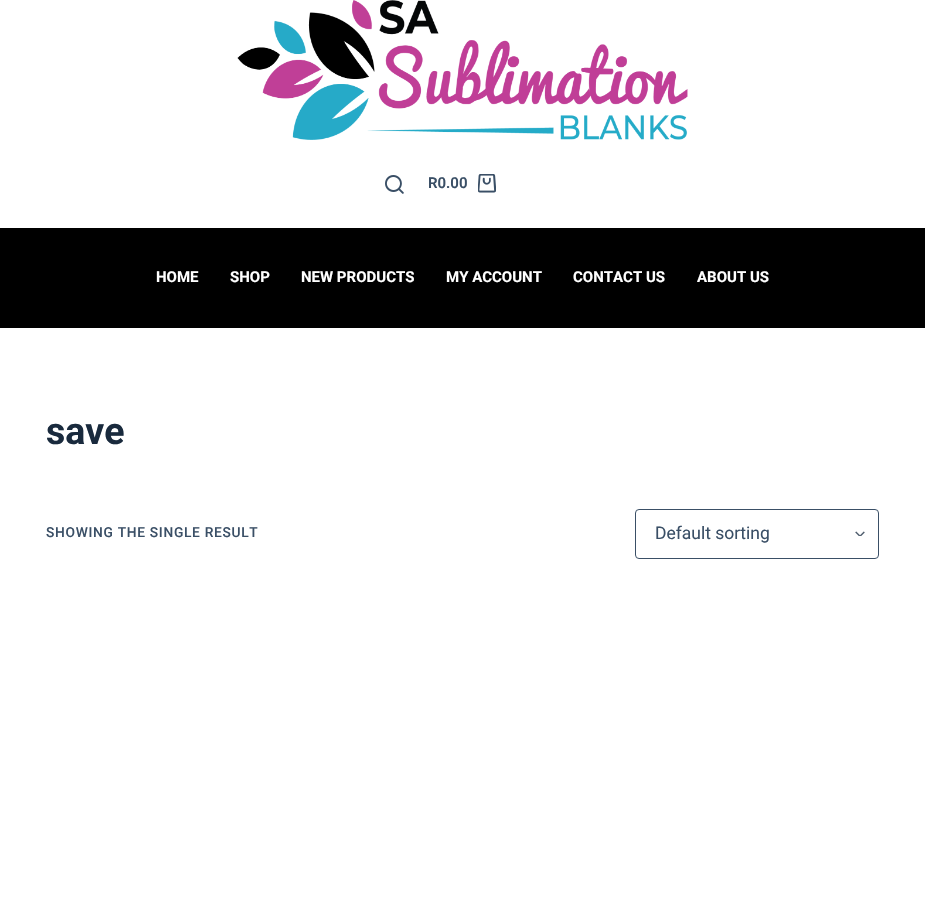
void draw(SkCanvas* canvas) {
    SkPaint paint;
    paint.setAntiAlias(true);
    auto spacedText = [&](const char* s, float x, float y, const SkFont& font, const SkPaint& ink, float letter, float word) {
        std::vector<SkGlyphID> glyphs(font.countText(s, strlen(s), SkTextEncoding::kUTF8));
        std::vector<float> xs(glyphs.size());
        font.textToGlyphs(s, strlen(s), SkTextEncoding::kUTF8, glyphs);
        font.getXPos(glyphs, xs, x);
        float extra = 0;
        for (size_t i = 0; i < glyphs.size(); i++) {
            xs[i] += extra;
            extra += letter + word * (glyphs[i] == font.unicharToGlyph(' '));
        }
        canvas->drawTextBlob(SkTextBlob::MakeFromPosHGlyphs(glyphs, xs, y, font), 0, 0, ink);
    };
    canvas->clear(0xFFFFFFFF);
    canvas->drawImageRect(SkImages::DeferredFromEncodedData(SkData::MakeFromFileName("img1.png")), SkRect::MakeXYWH(237, 0, 451, 140), SkSamplingOptions());
    canvas->drawImageRect(SkImages::DeferredFromEncodedData(SkData::MakeFromFileName("img2.png")), SkRect::MakeXYWH(385, 175, 19, 19), SkSamplingOptions());
    SkFont font1(fontMgr->matchFamilyStyle("Roboto", SkFontStyle(600, SkFontStyle::kNormal_Width, SkFontStyle::kUpright_Slant)), 15);
    font1.setSubpixel(true);
    paint.setColor(0xFF3A4F66);
    canvas->drawString("R0.00", 428, 188, font1, paint);
    canvas->drawImageRect(SkImages::DeferredFromEncodedData(SkData::MakeFromFileName("img3.png")), SkRect::MakeXYWH(478, 174, 18, 19), SkSamplingOptions());
    paint.setColor(0xFF000000);
    canvas->drawRect(SkRect::MakeXYWH(0, 228, 925, 100), paint);
    SkFont font2(fontMgr->matchFamilyStyle("Roboto", SkFontStyle::Bold()), 15);
    font2.setSubpixel(true);
    paint.setColor(0xFFFFFFFF);
    canvas->drawString("HOME", 156, 282, font2, paint);
    canvas->drawString("SHOP", 230, 282, font2, paint);
    canvas->drawString("NEW PRODUCTS", 301, 282, font2, paint);
    canvas->drawString("MY ACCOUNT", 446, 282, font2, paint);
    canvas->drawString("CONTACT US", 573, 282, font2, paint);
    canvas->drawString("ABOUT US", 697, 282, font2, paint);
    SkFont font3(fontMgr->matchFamilyStyle("Roboto", SkFontStyle::Bold()), 37.5f);
    font3.setSubpixel(true);
    paint.setColor(0xFF192A3D);
    canvas->drawString("save", 46, 444, font3, paint);
    SkFont font4(fontMgr->matchFamilyStyle("Roboto", SkFontStyle(500, SkFontStyle::kNormal_Width, SkFontStyle::kUpright_Slant)), 13.75f);
    font4.setSubpixel(true);
    paint.setColor(0xFF3A4F66);
    spacedText("SHOWING THE SINGLE RESULT", 46, 537, font4, paint, 0.7f, 0);
    canvas->drawImageRect(SkImages::DeferredFromEncodedData(SkData::MakeFromFileName("img4.png")), SkRect::MakeXYWH(855, 531, 10, 5), SkSamplingOptions());
    paint.setStyle(SkPaint::kStroke_Style);
    paint.setStrokeWidth(1);
    canvas->drawRoundRect(SkRect::MakeXYWH(635.5f, 509.5f, 243, 49), 3.5f, 3.5f, paint);
    SkFont font5(fontMgr->matchFamilyStyle("Roboto", SkFontStyle::Normal()), 17.5f);
    font5.setSubpixel(true);
    paint.setStyle(SkPaint::kFill_Style);
    canvas->drawString("Default sorting", 655, 539, font5, paint);
}
